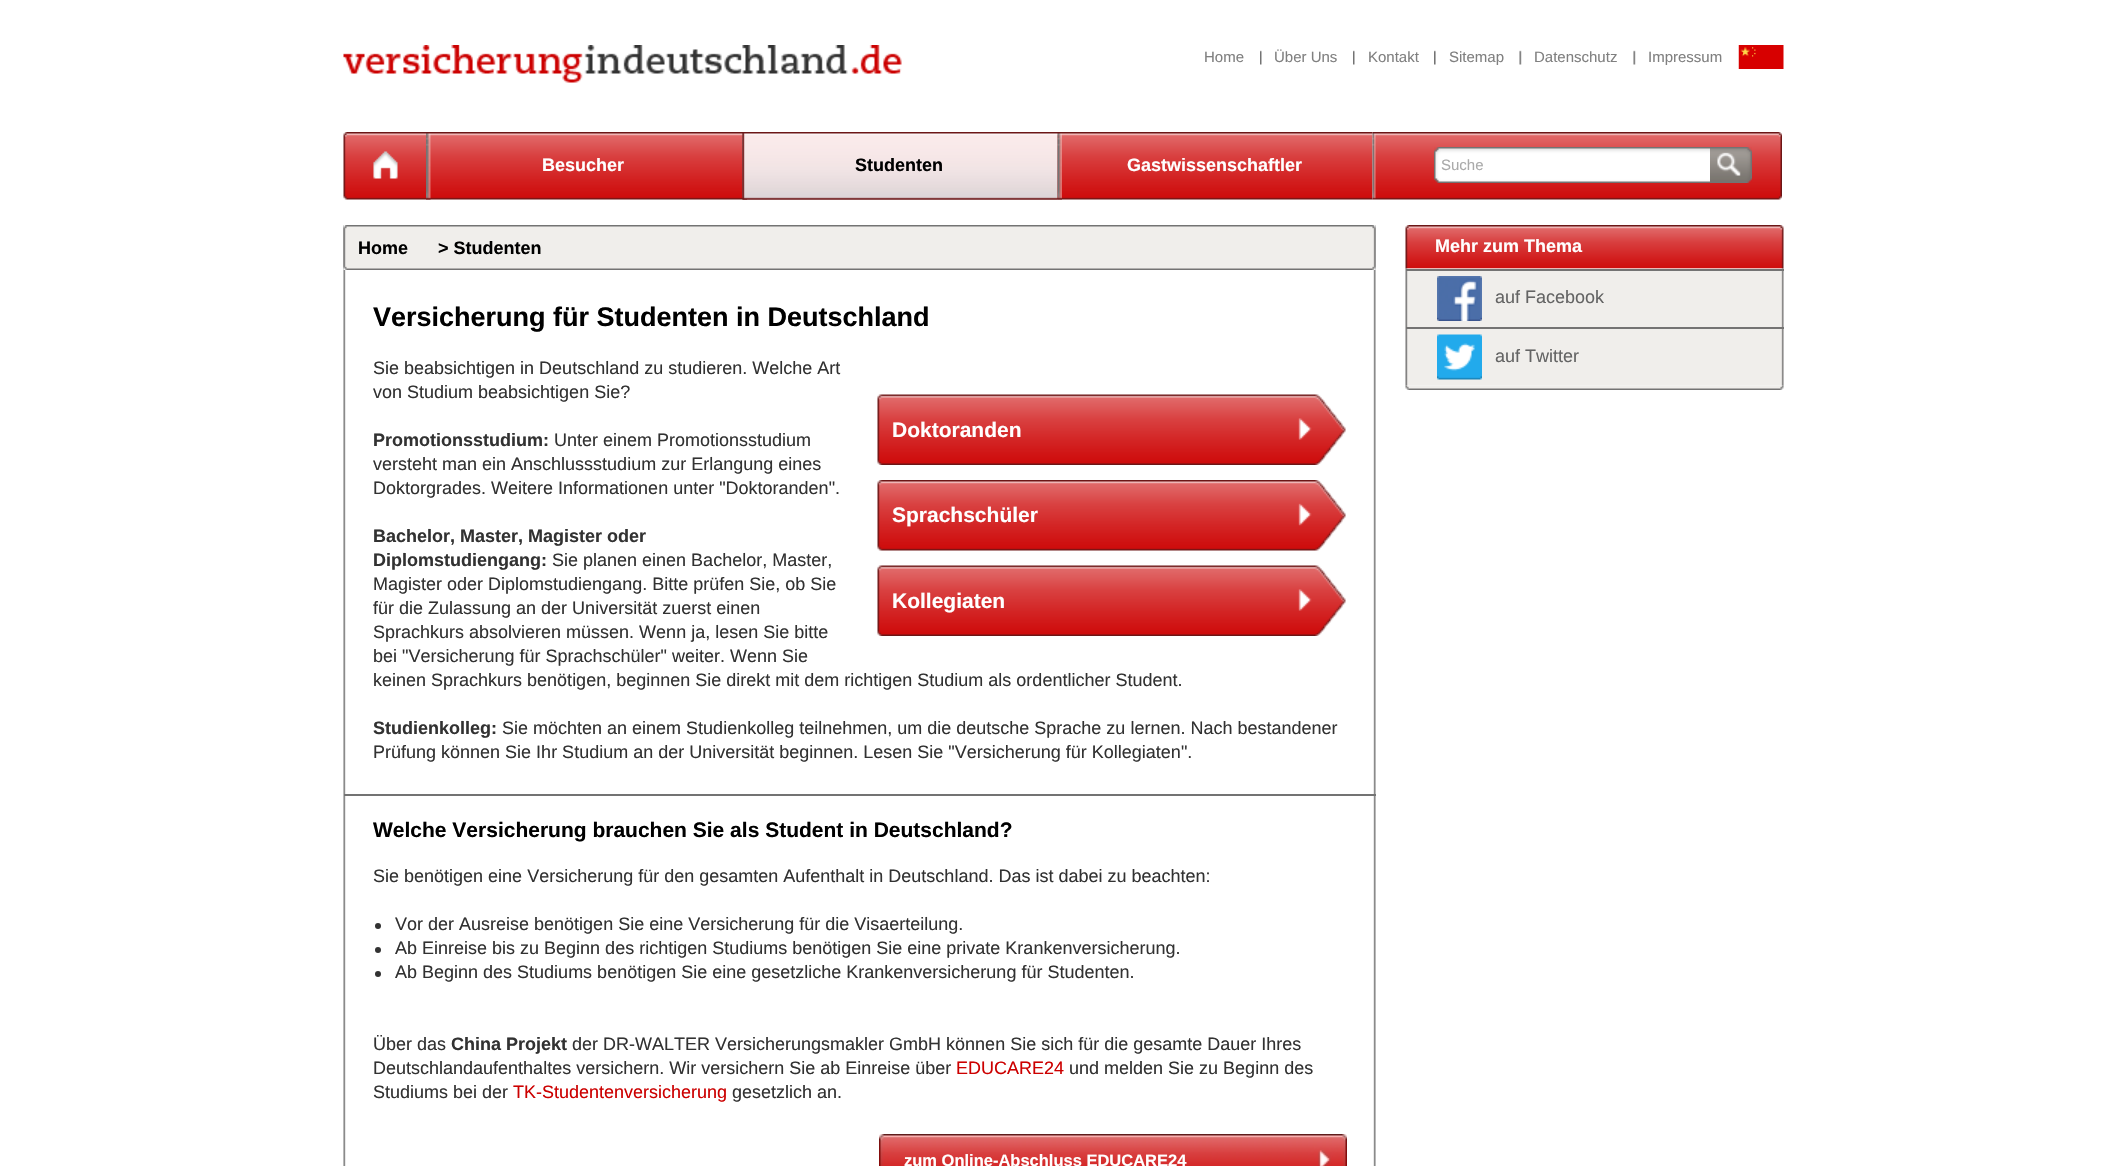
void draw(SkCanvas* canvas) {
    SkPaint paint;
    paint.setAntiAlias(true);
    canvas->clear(0xFFFFFFFF);
    canvas->drawImageRect(SkImages::DeferredFromEncodedData(SkData::MakeFromFileName("img1.png")), SkRect::MakeXYWH(343, 45, 559, 38), SkSamplingOptions());
    SkFont font1(fontMgr->matchFamilyStyle("Liberation Sans", SkFontStyle::Normal()), 15);
    font1.setSubpixel(true);
    paint.setColor(0xFF808080);
    canvas->drawString("Home", 1204, 62, font1, paint);
    canvas->drawImageRect(SkImages::DeferredFromEncodedData(SkData::MakeFromFileName("img2.png")), SkRect::MakeXYWH(1260, 50, 2, 15), SkSamplingOptions());
    canvas->drawString("Über Uns", 1274, 62, font1, paint);
    canvas->drawImageRect(SkImages::DeferredFromEncodedData(SkData::MakeFromFileName("img2.png")), SkRect::MakeXYWH(1353, 50, 2, 15), SkSamplingOptions());
    canvas->drawString("Kontakt", 1368, 62, font1, paint);
    canvas->drawImageRect(SkImages::DeferredFromEncodedData(SkData::MakeFromFileName("img3.png")), SkRect::MakeXYWH(1434, 50, 2, 15), SkSamplingOptions());
    canvas->drawString("Sitemap", 1449, 62, font1, paint);
    canvas->drawImageRect(SkImages::DeferredFromEncodedData(SkData::MakeFromFileName("img4.png")), SkRect::MakeXYWH(1519, 50, 3, 15), SkSamplingOptions());
    canvas->drawString("Datenschutz", 1534, 62, font1, paint);
    canvas->drawImageRect(SkImages::DeferredFromEncodedData(SkData::MakeFromFileName("img6.png")), SkRect::MakeXYWH(1738, 45, 46, 24), SkSamplingOptions());
    canvas->drawImageRect(SkImages::DeferredFromEncodedData(SkData::MakeFromFileName("img5.png")), SkRect::MakeXYWH(1633, 45, 106, 24), SkSamplingOptions());
    canvas->drawString("Impressum", 1648, 62, font1, paint);
    canvas->drawImageRect(SkImages::DeferredFromEncodedData(SkData::MakeFromFileName("img7.png")), SkRect::MakeXYWH(343, 132, 83, 68), SkSamplingOptions());
    canvas->drawImageRect(SkImages::DeferredFromEncodedData(SkData::MakeFromFileName("img8.png")), SkRect::MakeXYWH(426, 132, 947, 68), SkSamplingOptions());
    canvas->drawImageRect(SkImages::DeferredFromEncodedData(SkData::MakeFromFileName("img9.png")), SkRect::MakeXYWH(426, 133, 5, 67), SkSamplingOptions());
    SkFont font2(fontMgr->matchFamilyStyle("Liberation Sans", SkFontStyle::Bold()), 18);
    font2.setSubpixel(true);
    paint.setColor(0xFFFFFFFF);
    canvas->drawString("Besucher", 542, 171, font2, paint);
    canvas->drawImageRect(SkImages::DeferredFromEncodedData(SkData::MakeFromFileName("img10.png")), SkRect::MakeXYWH(742, 133, 5, 67), SkSamplingOptions());
    canvas->drawImageRect(SkImages::DeferredFromEncodedData(SkData::MakeFromFileName("img11.png")), SkRect::MakeXYWH(742, 133, 316, 67), SkSamplingOptions());
    paint.setColor(0xFF000000);
    canvas->drawString("Studenten", 855, 171, font2, paint);
    canvas->drawImageRect(SkImages::DeferredFromEncodedData(SkData::MakeFromFileName("img12.png")), SkRect::MakeXYWH(1057, 133, 5, 67), SkSamplingOptions());
    paint.setColor(0xFFFFFFFF);
    canvas->drawString("Gastwissenschaftler", 1127, 171, font2, paint);
    canvas->drawImageRect(SkImages::DeferredFromEncodedData(SkData::MakeFromFileName("img13.png")), SkRect::MakeXYWH(1372, 132, 410, 68), SkSamplingOptions());
    canvas->drawImageRect(SkImages::DeferredFromEncodedData(SkData::MakeFromFileName("img14.png")), SkRect::MakeXYWH(1434, 147, 276, 36), SkSamplingOptions());
    paint.setColor(0xFFAAAAAA);
    canvas->drawString("Suche", 1441, 170, font1, paint);
    canvas->drawImageRect(SkImages::DeferredFromEncodedData(SkData::MakeFromFileName("img15.png")), SkRect::MakeXYWH(1710, 147, 42, 36), SkSamplingOptions());
    canvas->drawImageRect(SkImages::DeferredFromEncodedData(SkData::MakeFromFileName("img16.png")), SkRect::MakeXYWH(343, 225, 1033, 941), SkSamplingOptions());
    canvas->drawImageRect(SkImages::DeferredFromEncodedData(SkData::MakeFromFileName("img17.png")), SkRect::MakeXYWH(343, 225, 1033, 45), SkSamplingOptions());
    paint.setColor(0xFF000000);
    canvas->drawString("Home", 358, 254, font2, paint);
    canvas->drawString("> Studenten", 438, 254, font2, paint);
    SkFont font3(fontMgr->matchFamilyStyle("Liberation Sans", SkFontStyle::Bold()), 27);
    font3.setSubpixel(true);
    canvas->drawString("Versicherung für Studenten in Deutschland", 373, 326, font3, paint);
    SkFont font4(fontMgr->matchFamilyStyle("Liberation Sans", SkFontStyle::Normal()), 18);
    font4.setSubpixel(true);
    paint.setColor(0xFF323232);
    canvas->drawString("Sie beabsichtigen in Deutschland zu studieren. Welche Art", 373, 374, font4, paint);
    canvas->drawString("von Studium beabsichtigen Sie?", 373, 398, font4, paint);
    canvas->drawString("Promotionsstudium:", 373, 446, font2, paint);
    canvas->drawString("Unter einem Promotionsstudium", 554, 446, font4, paint);
    canvas->drawImageRect(SkImages::DeferredFromEncodedData(SkData::MakeFromFileName("img18.png")), SkRect::MakeXYWH(877, 394, 469, 71), SkSamplingOptions());
    SkFont font5(fontMgr->matchFamilyStyle("Liberation Sans", SkFontStyle::Bold()), 21);
    font5.setSubpixel(true);
    paint.setColor(0xFFFFFFFF);
    canvas->drawString("Doktoranden", 892, 437, font5, paint);
    canvas->drawImageRect(SkImages::DeferredFromEncodedData(SkData::MakeFromFileName("img19.png")), SkRect::MakeXYWH(877, 480, 469, 71), SkSamplingOptions());
    canvas->drawString("Sprachschüler", 892, 522, font5, paint);
    canvas->drawImageRect(SkImages::DeferredFromEncodedData(SkData::MakeFromFileName("img18.png")), SkRect::MakeXYWH(877, 565, 469, 71), SkSamplingOptions());
    canvas->drawString("Kollegiaten", 892, 608, font5, paint);
    paint.setColor(0xFF323232);
    canvas->drawString("versteht man ein Anschlussstudium zur Erlangung eines", 373, 470, font4, paint);
    canvas->drawString("Doktorgrades. Weitere Informationen unter \"Doktoranden\".", 373, 494, font4, paint);
    canvas->drawString("Bachelor, Master, Magister oder", 373, 542, font2, paint);
    canvas->drawString("Diplomstudiengang:", 373, 566, font2, paint);
    canvas->drawString("Sie planen einen Bachelor, Master,", 552, 566, font4, paint);
    canvas->drawString("Magister oder Diplomstudiengang. Bitte prüfen Sie, ob Sie", 373, 590, font4, paint);
    canvas->drawString("für die Zulassung an der Universität zuerst einen", 373, 614, font4, paint);
    canvas->drawString("Sprachkurs absolvieren müssen. Wenn ja, lesen Sie bitte", 373, 638, font4, paint);
    canvas->drawString("bei \"Versicherung für Sprachschüler\" weiter. Wenn Sie", 373, 662, font4, paint);
    canvas->drawString("keinen Sprachkurs benötigen, beginnen Sie direkt mit dem richtigen Studium als ordentlicher Student.", 373, 686, font4, paint);
    canvas->drawString("Studienkolleg:", 373, 734, font2, paint);
    canvas->drawString("Sie möchten an einem Studienkolleg teilnehmen, um die deutsche Sprache zu lernen. Nach bestandener", 502, 734, font4, paint);
    canvas->drawString("Prüfung können Sie Ihr Studium an der Universität beginnen. Lesen Sie \"Versicherung für Kollegiaten\".", 373, 758, font4, paint);
    paint.setColor(0xFF737373);
    canvas->drawRect(SkRect::MakeXYWH(344, 794, 1032, 2), paint);
    paint.setColor(0xFF000000);
    canvas->drawString("Welche Versicherung brauchen Sie als Student in Deutschland?", 373, 837, font5, paint);
    paint.setColor(0xFF323232);
    canvas->drawString("Sie benötigen eine Versicherung für den gesamten Aufenthalt in Deutschland. Das ist dabei zu beachten:", 373, 882, font4, paint);
    canvas->drawCircle(378, 926, 3, paint);
    canvas->drawString("Vor der Ausreise benötigen Sie eine Versicherung für die Visaerteilung.", 395, 930, font4, paint);
    canvas->drawCircle(378, 950, 3, paint);
    canvas->drawString("Ab Einreise bis zu Beginn des richtigen Studiums benötigen Sie eine private Krankenversicherung.", 395, 954, font4, paint);
    canvas->drawCircle(378, 974, 3, paint);
    canvas->drawString("Ab Beginn des Studiums benötigen Sie eine gesetzliche Krankenversicherung für Studenten.", 395, 978, font4, paint);
    canvas->drawString("Über das", 373, 1050, font4, paint);
    canvas->drawString("China Projekt", 451, 1050, font2, paint);
    canvas->drawString("der DR-WALTER Versicherungsmakler GmbH können Sie sich für die gesamte Dauer Ihres", 572, 1050, font4, paint);
    canvas->drawString("Deutschlandaufenthaltes versichern. Wir versichern Sie ab Einreise über", 373, 1074, font4, paint);
    paint.setColor(0xFFCC0000);
    canvas->drawString("EDUCARE24", 956, 1074, font4, paint);
    paint.setColor(0xFF323232);
    canvas->drawString("und melden Sie zu Beginn des", 1069, 1074, font4, paint);
    canvas->drawString("Studiums bei der", 373, 1098, font4, paint);
    paint.setColor(0xFFCC0000);
    canvas->drawString("TK-Studentenversicherung", 513, 1098, font4, paint);
    paint.setColor(0xFF323232);
    canvas->drawString("gesetzlich an.", 732, 1098, font4, paint);
    canvas->drawImageRect(SkImages::DeferredFromEncodedData(SkData::MakeFromFileName("img20.png")), SkRect::MakeXYWH(879, 1134, 468, 32), SkSamplingOptions());
    SkFont font6(fontMgr->matchFamilyStyle("Liberation Sans", SkFontStyle::Bold()), 16.5f);
    font6.setSubpixel(true);
    paint.setColor(0xFFFFFFFF);
    canvas->drawString("zum Online-Abschluss EDUCARE24", 904, 1166, font6, paint);
    canvas->drawImageRect(SkImages::DeferredFromEncodedData(SkData::MakeFromFileName("img21.png")), SkRect::MakeXYWH(1405, 225, 379, 44), SkSamplingOptions());
    canvas->drawString("Mehr zum Thema", 1435, 252, font2, paint);
    canvas->drawImageRect(SkImages::DeferredFromEncodedData(SkData::MakeFromFileName("img22.png")), SkRect::MakeXYWH(1405, 268, 379, 118), SkSamplingOptions());
    canvas->drawImageRect(SkImages::DeferredFromEncodedData(SkData::MakeFromFileName("img23.png")), SkRect::MakeXYWH(1437, 276, 45, 45), SkSamplingOptions());
    paint.setColor(0xFF747373);
    canvas->drawRect(SkRect::MakeXYWH(1406, 269, 378, 2), paint);
    paint.setColor(0xFF646464);
    canvas->drawString("auf Facebook", 1495, 303, font4, paint);
    canvas->drawImageRect(SkImages::DeferredFromEncodedData(SkData::MakeFromFileName("img24.png")), SkRect::MakeXYWH(1437, 334, 45, 46), SkSamplingOptions());
    paint.setColor(0xFF747373);
    canvas->drawRect(SkRect::MakeXYWH(1406, 327, 378, 2), paint);
    paint.setColor(0xFF646464);
    canvas->drawString("auf Twitter", 1495, 362, font4, paint);
    canvas->drawImageRect(SkImages::DeferredFromEncodedData(SkData::MakeFromFileName("img25.png")), SkRect::MakeXYWH(1405, 385, 379, 5), SkSamplingOptions());
}
